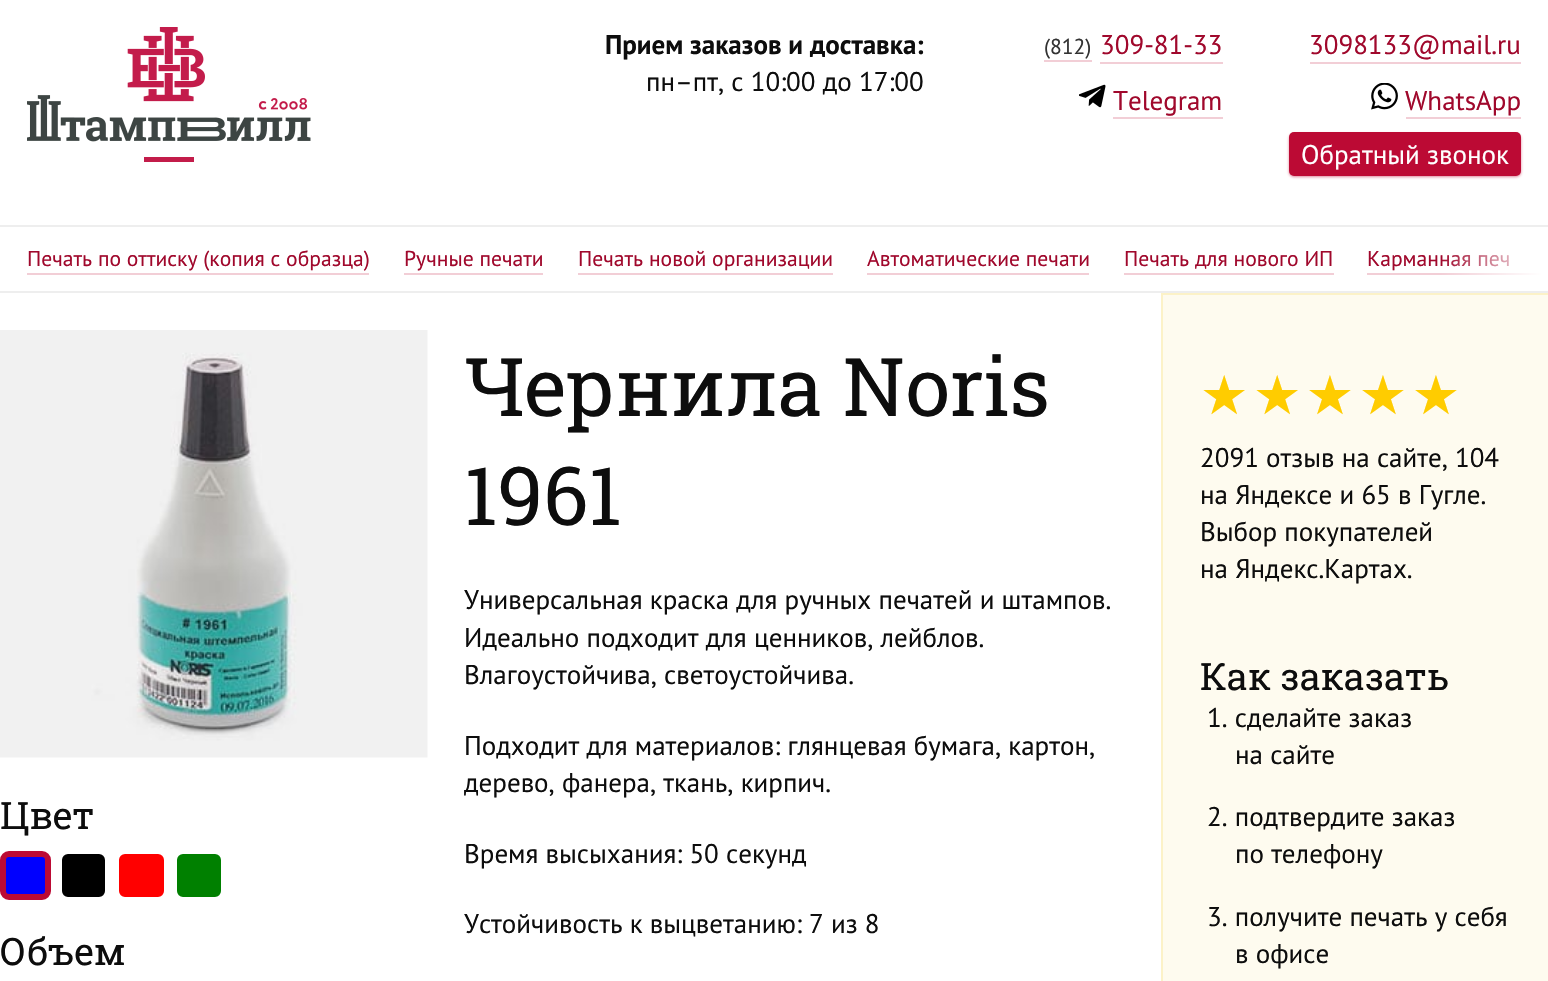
void draw(SkCanvas* canvas) {
    SkPaint paint;
    paint.setAntiAlias(true);
    auto spacedText = [&](const char* s, float x, float y, const SkFont& font, const SkPaint& ink, float letter, float word) {
        std::vector<SkGlyphID> glyphs(font.countText(s, strlen(s), SkTextEncoding::kUTF8));
        std::vector<float> xs(glyphs.size());
        font.textToGlyphs(s, strlen(s), SkTextEncoding::kUTF8, glyphs);
        font.getXPos(glyphs, xs, x);
        float extra = 0;
        for (size_t i = 0; i < glyphs.size(); i++) {
            xs[i] += extra;
            extra += letter + word * (glyphs[i] == font.unicharToGlyph(' '));
        }
        canvas->drawTextBlob(SkTextBlob::MakeFromPosHGlyphs(glyphs, xs, y, font), 0, 0, ink);
    };
    canvas->clear(0xFFFFFFFF);
    canvas->drawImageRect(SkImages::DeferredFromEncodedData(SkData::MakeFromFileName("img1.png")), SkRect::MakeXYWH(27, 27, 284, 135), SkSamplingOptions());
    SkFont font1(fontMgr->matchFamilyStyle("PT Sans", SkFontStyle::Bold()), 27);
    font1.setSubpixel(true);
    paint.setColor(0xFF0D0D0D);
    canvas->drawString("Прием заказов и доставка:", 605, 54, font1, paint);
    SkFont font2(fontMgr->matchFamilyStyle("PT Sans", SkFontStyle::Normal()), 27);
    font2.setSubpixel(true);
    canvas->drawString("пн–пт, с 10:00 до 17:00", 646, 91, font2, paint);
    SkFont font3(fontMgr->matchFamilyStyle("PT Sans", SkFontStyle::Normal()), 21.6f);
    font3.setSubpixel(true);
    paint.setColor(0xFF333333);
    canvas->drawString("(812)", 1044, 54, font3, paint);
    paint.setColor(0xFFF2CED6);
    canvas->drawRect(SkRect::MakeXYWH(1044, 60, 48, 2), paint);
    paint.setColor(0xFFA0082C);
    canvas->drawString("309-81-33", 1100, 54, font2, paint);
    paint.setColor(0xFFF2CED6);
    canvas->drawRect(SkRect::MakeXYWH(1100, 62, 123, 2), paint);
    paint.setColor(0xFFA0082C);
    canvas->drawString("3098133@mail.ru", 1309, 54, font2, paint);
    paint.setColor(0xFFF2CED6);
    canvas->drawRect(SkRect::MakeXYWH(1310, 62, 211, 2), paint);
    canvas->drawImageRect(SkImages::DeferredFromEncodedData(SkData::MakeFromFileName("img2.png")), SkRect::MakeXYWH(1079, 84, 27, 24), SkSamplingOptions());
    paint.setColor(0xFFA0082C);
    canvas->drawString("Telegram", 1113, 110, font2, paint);
    paint.setColor(0xFFF2CED6);
    canvas->drawRect(SkRect::MakeXYWH(1113, 117, 110, 2), paint);
    canvas->drawImageRect(SkImages::DeferredFromEncodedData(SkData::MakeFromFileName("img3.png")), SkRect::MakeXYWH(1371, 83, 27, 27), SkSamplingOptions());
    paint.setColor(0xFFA0082C);
    canvas->drawString("WhatsApp", 1405, 110, font2, paint);
    paint.setColor(0xFFF2CED6);
    canvas->drawRect(SkRect::MakeXYWH(1406, 117, 115, 2), paint);
    paint.setColor(0x80BC0A34);
    paint.setMaskFilter(SkMaskFilter::MakeBlur(kNormal_SkBlurStyle, 1.5f));
    canvas->drawRoundRect(SkRect::MakeXYWH(1289, 134, 232, 43), 5, 5, paint);
    paint.setMaskFilter(nullptr);
    paint.setColor(0xFFBC0A34);
    canvas->drawRoundRect(SkRect::MakeXYWH(1289, 132, 232, 44), 5, 5, paint);
    paint.setColor(0xFFFFFFFF);
    canvas->drawString("Обратный звонок", 1301, 164, font2, paint);
    paint.setColor(0xFFEEEEEE);
    canvas->drawRect(SkRect::MakeXYWH(0, 225, 1548, 2), paint);
    canvas->drawRect(SkRect::MakeXYWH(0, 291, 1548, 2), paint);
    paint.setColor(0xFFA0082C);
    canvas->drawString("Печать по оттиску (копия с образца)", 27, 266, font3, paint);
    paint.setColor(0xFFF2CED6);
    canvas->drawRect(SkRect::MakeXYWH(27, 273, 342, 2), paint);
    paint.setColor(0xFFA0082C);
    canvas->drawString("Ручные печати", 404, 266, font3, paint);
    paint.setColor(0xFFF2CED6);
    canvas->drawRect(SkRect::MakeXYWH(404, 273, 139, 2), paint);
    paint.setColor(0xFFA0082C);
    canvas->drawString("Печать новой организации", 578, 266, font3, paint);
    paint.setColor(0xFFF2CED6);
    canvas->drawRect(SkRect::MakeXYWH(578, 273, 255, 2), paint);
    paint.setColor(0xFFA0082C);
    canvas->drawString("Автоматические печати", 867, 266, font3, paint);
    paint.setColor(0xFFF2CED6);
    canvas->drawRect(SkRect::MakeXYWH(867, 273, 222, 2), paint);
    paint.setColor(0xFFA0082C);
    canvas->drawString("Печать для нового ИП", 1124, 266, font3, paint);
    paint.setColor(0xFFF2CED6);
    canvas->drawRect(SkRect::MakeXYWH(1124, 273, 210, 2), paint);
    paint.setColor(0xFFA0082C);
    canvas->drawString("Карманная печ", 1367, 266, font3, paint);
    paint.setColor(0xFFF2CED6);
    canvas->drawRect(SkRect::MakeXYWH(1367, 273, 174, 2), paint);
    {
        const SkColor colors[] = {0x00FFFFFF, 0xFFFFFFFF};
        const float stops[] = {0, 0.96f};
        const SkPoint ends[] = {{1440, 259}, {1548, 259}};
        paint.setShader(SkGradientShader::MakeLinear(ends, colors, stops, 2, SkTileMode::kClamp));
        paint.setAlpha(255);
    }
    canvas->drawRect(SkRect::MakeXYWH(1442, 254, 99, 21), paint);
    canvas->drawImageRect(SkImages::DeferredFromEncodedData(SkData::MakeFromFileName("img4.png")), SkRect::MakeXYWH(0, 330, 428, 428), SkSamplingOptions());
    SkFont font4(fontMgr->matchFamilyStyle("Roboto Slab", SkFontStyle::Normal()), 37.75f);
    font4.setSubpixel(true);
    paint.setShader(nullptr);
    paint.setColor(0xFF0D0D0D);
    canvas->drawString("Цвет", 0, 829, font4, paint);
    paint.setColor(0xFF0000FF);
    canvas->drawRoundRect(SkRect::MakeXYWH(3, 854, 45, 43), 6, 6, paint);
    paint.setStyle(SkPaint::kStroke_Style);
    paint.setStrokeWidth(6);
    paint.setColor(0xFFBC0A34);
    canvas->drawRoundRect(SkRect::MakeXYWH(3, 854, 45, 43), 6, 6, paint);
    paint.setStyle(SkPaint::kFill_Style);
    paint.setColor(0xFF000000);
    canvas->drawRoundRect(SkRect::MakeXYWH(60.5f, 852.5f, 46, 46), 7.5f, 7.5f, paint);
    paint.setStyle(SkPaint::kStroke_Style);
    paint.setStrokeWidth(3);
    paint.setColor(0xFFFFFFFF);
    canvas->drawRoundRect(SkRect::MakeXYWH(60.5f, 852.5f, 46, 46), 7.5f, 7.5f, paint);
    paint.setStyle(SkPaint::kFill_Style);
    paint.setColor(0xFFFF0000);
    canvas->drawRoundRect(SkRect::MakeXYWH(117.5f, 852.5f, 48, 46), 7.5f, 7.5f, paint);
    paint.setStyle(SkPaint::kStroke_Style);
    paint.setColor(0xFFFFFFFF);
    canvas->drawRoundRect(SkRect::MakeXYWH(117.5f, 852.5f, 48, 46), 7.5f, 7.5f, paint);
    paint.setStyle(SkPaint::kFill_Style);
    paint.setColor(0xFF008000);
    canvas->drawRoundRect(SkRect::MakeXYWH(175.5f, 852.5f, 47, 46), 7.5f, 7.5f, paint);
    paint.setStyle(SkPaint::kStroke_Style);
    paint.setColor(0xFFFFFFFF);
    canvas->drawRoundRect(SkRect::MakeXYWH(175.5f, 852.5f, 47, 46), 7.5f, 7.5f, paint);
    paint.setStyle(SkPaint::kFill_Style);
    paint.setColor(0xFF0D0D0D);
    canvas->drawString("Объем", 0, 965, font4, paint);
    SkFont font5(fontMgr->matchFamilyStyle("Roboto Slab", SkFontStyle::Normal()), 81);
    font5.setSubpixel(true);
    canvas->drawString("Чернила Noris", 464, 416, font5, paint);
    canvas->drawString("1961", 464, 525, font5, paint);
    canvas->drawString("Универсальная краска для ручных печатей и штампов.", 464, 609, font2, paint);
    canvas->drawString("Идеально подходит для ценников, лейблов.", 464, 647, font2, paint);
    canvas->drawString("Влагоустойчива, светоустойчива.", 464, 684, font2, paint);
    canvas->drawString("Подходит для материалов: глянцевая бумага, картон,", 464, 755, font2, paint);
    canvas->drawString("дерево, фанера, ткань, кирпич.", 464, 792, font2, paint);
    canvas->drawString("Время высыхания: 50 секунд", 464, 863, font2, paint);
    canvas->drawString("Устойчивость к выцветанию: 7 из 8", 464, 933, font2, paint);
    paint.setColor(0xFFFEFBEF);
    canvas->drawRect(SkRect::MakeXYWH(1163, 295, 385, 686), paint);
    paint.setColor(0xFFFCF2C8);
    canvas->drawRect(SkRect::MakeXYWH(1161, 293, 387, 2), paint);
    canvas->drawRect(SkRect::MakeXYWH(1161, 293, 2, 688), paint);
    SkFont font6(fontMgr->matchFamilyStyle("DejaVu Sans", SkFontStyle::Normal()), 54);
    font6.setSubpixel(true);
    paint.setColor(0xFFFFCC00);
    spacedText("★★★★★", 1200, 414, font6, paint, 4.5f, 0);
    paint.setColor(0xFF0D0D0D);
    canvas->drawString("2091 отзыв на сайте, 104", 1200, 467, font2, paint);
    canvas->drawString("на Яндексе и 65 в Гугле.", 1200, 504, font2, paint);
    canvas->drawString("Выбор покупателей", 1200, 541, font2, paint);
    canvas->drawString("на Яндекс.Картах.", 1200, 578, font2, paint);
    canvas->drawString("Как заказать", 1200, 690, font4, paint);
    canvas->drawString("1. сделайте заказ", 1207, 727, font2, paint);
    canvas->drawString("на сайте", 1235, 764, font2, paint);
    canvas->drawString("2. подтвердите заказ", 1207, 826, font2, paint);
    canvas->drawString("по телефону", 1235, 863, font2, paint);
    canvas->drawString("3. получите печать у себя", 1207, 926, font2, paint);
    canvas->drawString("в офисе", 1235, 963, font2, paint);
}
